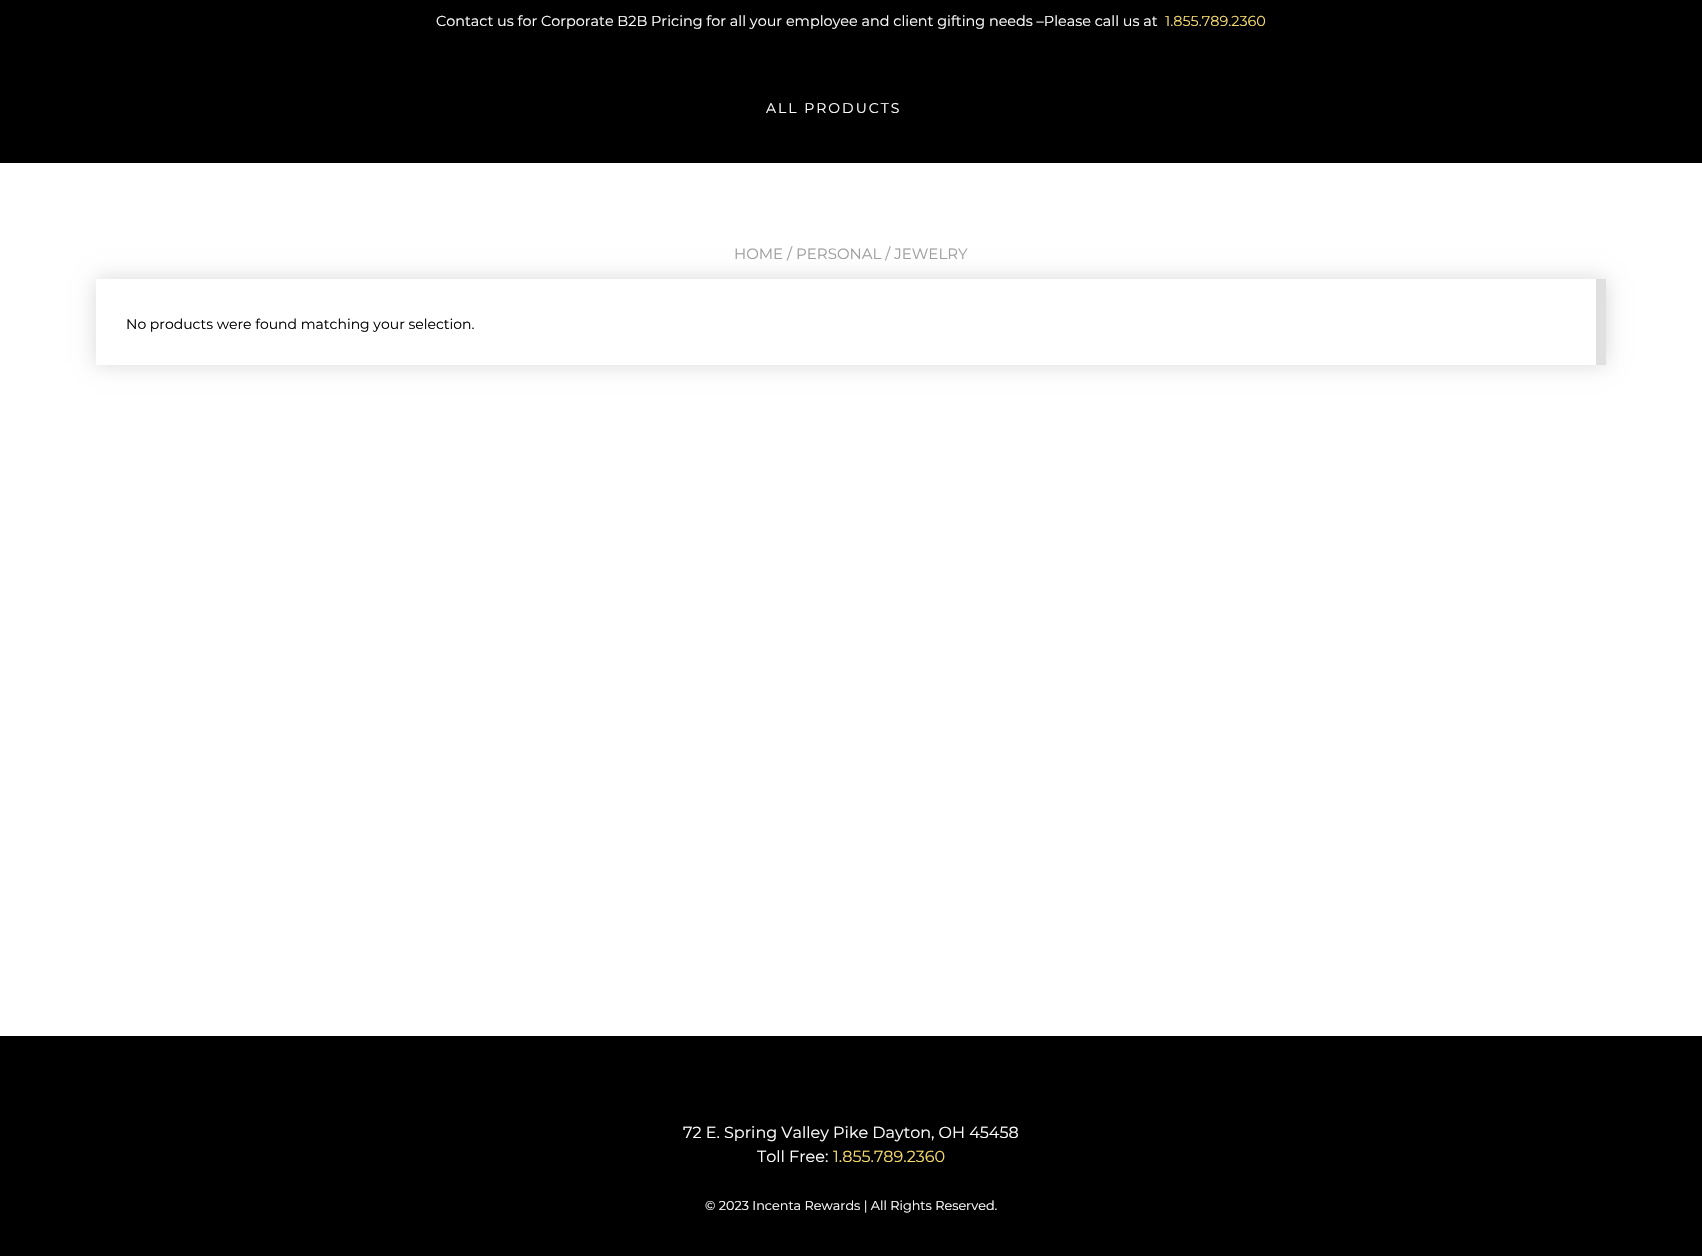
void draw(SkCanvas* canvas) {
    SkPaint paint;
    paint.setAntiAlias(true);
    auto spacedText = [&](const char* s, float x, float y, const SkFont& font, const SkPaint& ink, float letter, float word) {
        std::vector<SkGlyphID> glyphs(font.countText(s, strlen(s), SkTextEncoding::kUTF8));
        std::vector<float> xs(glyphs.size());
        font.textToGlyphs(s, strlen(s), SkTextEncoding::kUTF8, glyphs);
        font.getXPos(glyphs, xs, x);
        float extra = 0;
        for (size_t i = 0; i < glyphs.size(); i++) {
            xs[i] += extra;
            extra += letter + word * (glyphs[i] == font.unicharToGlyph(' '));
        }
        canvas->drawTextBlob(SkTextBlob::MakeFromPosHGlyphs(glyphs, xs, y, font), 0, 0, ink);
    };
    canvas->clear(0xFFFFFFFF);
    paint.setColor(0xFF000000);
    canvas->drawRect(SkRect::MakeXYWH(0, 0, 1702, 163), paint);
    SkFont font1(fontMgr->matchFamilyStyle("Montserrat", SkFontStyle::Normal()), 14.4f);
    font1.setSubpixel(true);
    paint.setColor(0xFFFFFFFF);
    canvas->drawString("Contact us for Corporate B2B Pricing for all your employee and client gifting needs –Please call us at", 436, 26, font1, paint);
    paint.setColor(0xFFF6DC6B);
    canvas->drawString("1.855.789.2360", 1165, 26, font1, paint);
    SkFont font2(fontMgr->matchFamilyStyle("Montserrat", SkFontStyle::Normal()), 14);
    font2.setSubpixel(true);
    paint.setColor(0xFFFFFFFF);
    spacedText("ALL PRODUCTS", 766, 113, font2, paint, 2, 0);
    canvas->save();
    canvas->clipPath(SkPathBuilder(SkPathFillType::kEvenOdd).moveTo(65, 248).lineTo(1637, 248).lineTo(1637, 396).lineTo(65, 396).close().moveTo(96, 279).lineTo(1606, 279).lineTo(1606, 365).lineTo(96, 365).close().detach(), true);
    paint.setColor(0x26000000);
    paint.setMaskFilter(SkMaskFilter::MakeBlur(kNormal_SkBlurStyle, 10));
    canvas->drawRect(SkRect::MakeXYWH(96, 279, 1510, 86), paint);
    paint.setMaskFilter(nullptr);
    canvas->restore();
    SkFont font3(fontMgr->matchFamilyStyle("Montserrat", SkFontStyle::Normal()), 15);
    font3.setSubpixel(true);
    paint.setColor(0xFF9D9D9D);
    canvas->drawString("HOME / PERSONAL / JEWELRY", 734, 259, font3, paint);
    paint.setColor(0xFFE0E0E0);
    canvas->drawRect(SkRect::MakeXYWH(1596, 279, 10, 86), paint);
    paint.setColor(0xFF000000);
    canvas->drawString("No products were found matching your selection.", 126, 329, font2, paint);
    canvas->drawRect(SkRect::MakeXYWH(0, 1036, 1702, 220), paint);
    SkFont font4(fontMgr->matchFamilyStyle("Montserrat", SkFontStyle::Normal()), 16);
    font4.setSubpixel(true);
    paint.setColor(0xFFFFFFFF);
    canvas->drawString("72 E. Spring Valley Pike Dayton, OH 45458", 683, 1138, font4, paint);
    canvas->drawString("Toll Free:", 757, 1162, font4, paint);
    paint.setColor(0xFFF6DC6B);
    canvas->drawString("1.855.789.2360", 833, 1162, font4, paint);
    SkFont font5(fontMgr->matchFamilyStyle("Montserrat", SkFontStyle::Normal()), 12.8f);
    font5.setSubpixel(true);
    paint.setColor(0xFFFFFFFF);
    canvas->drawString("© 2023 Incenta Rewards | All Rights Reserved.", 705, 1210, font5, paint);
}
